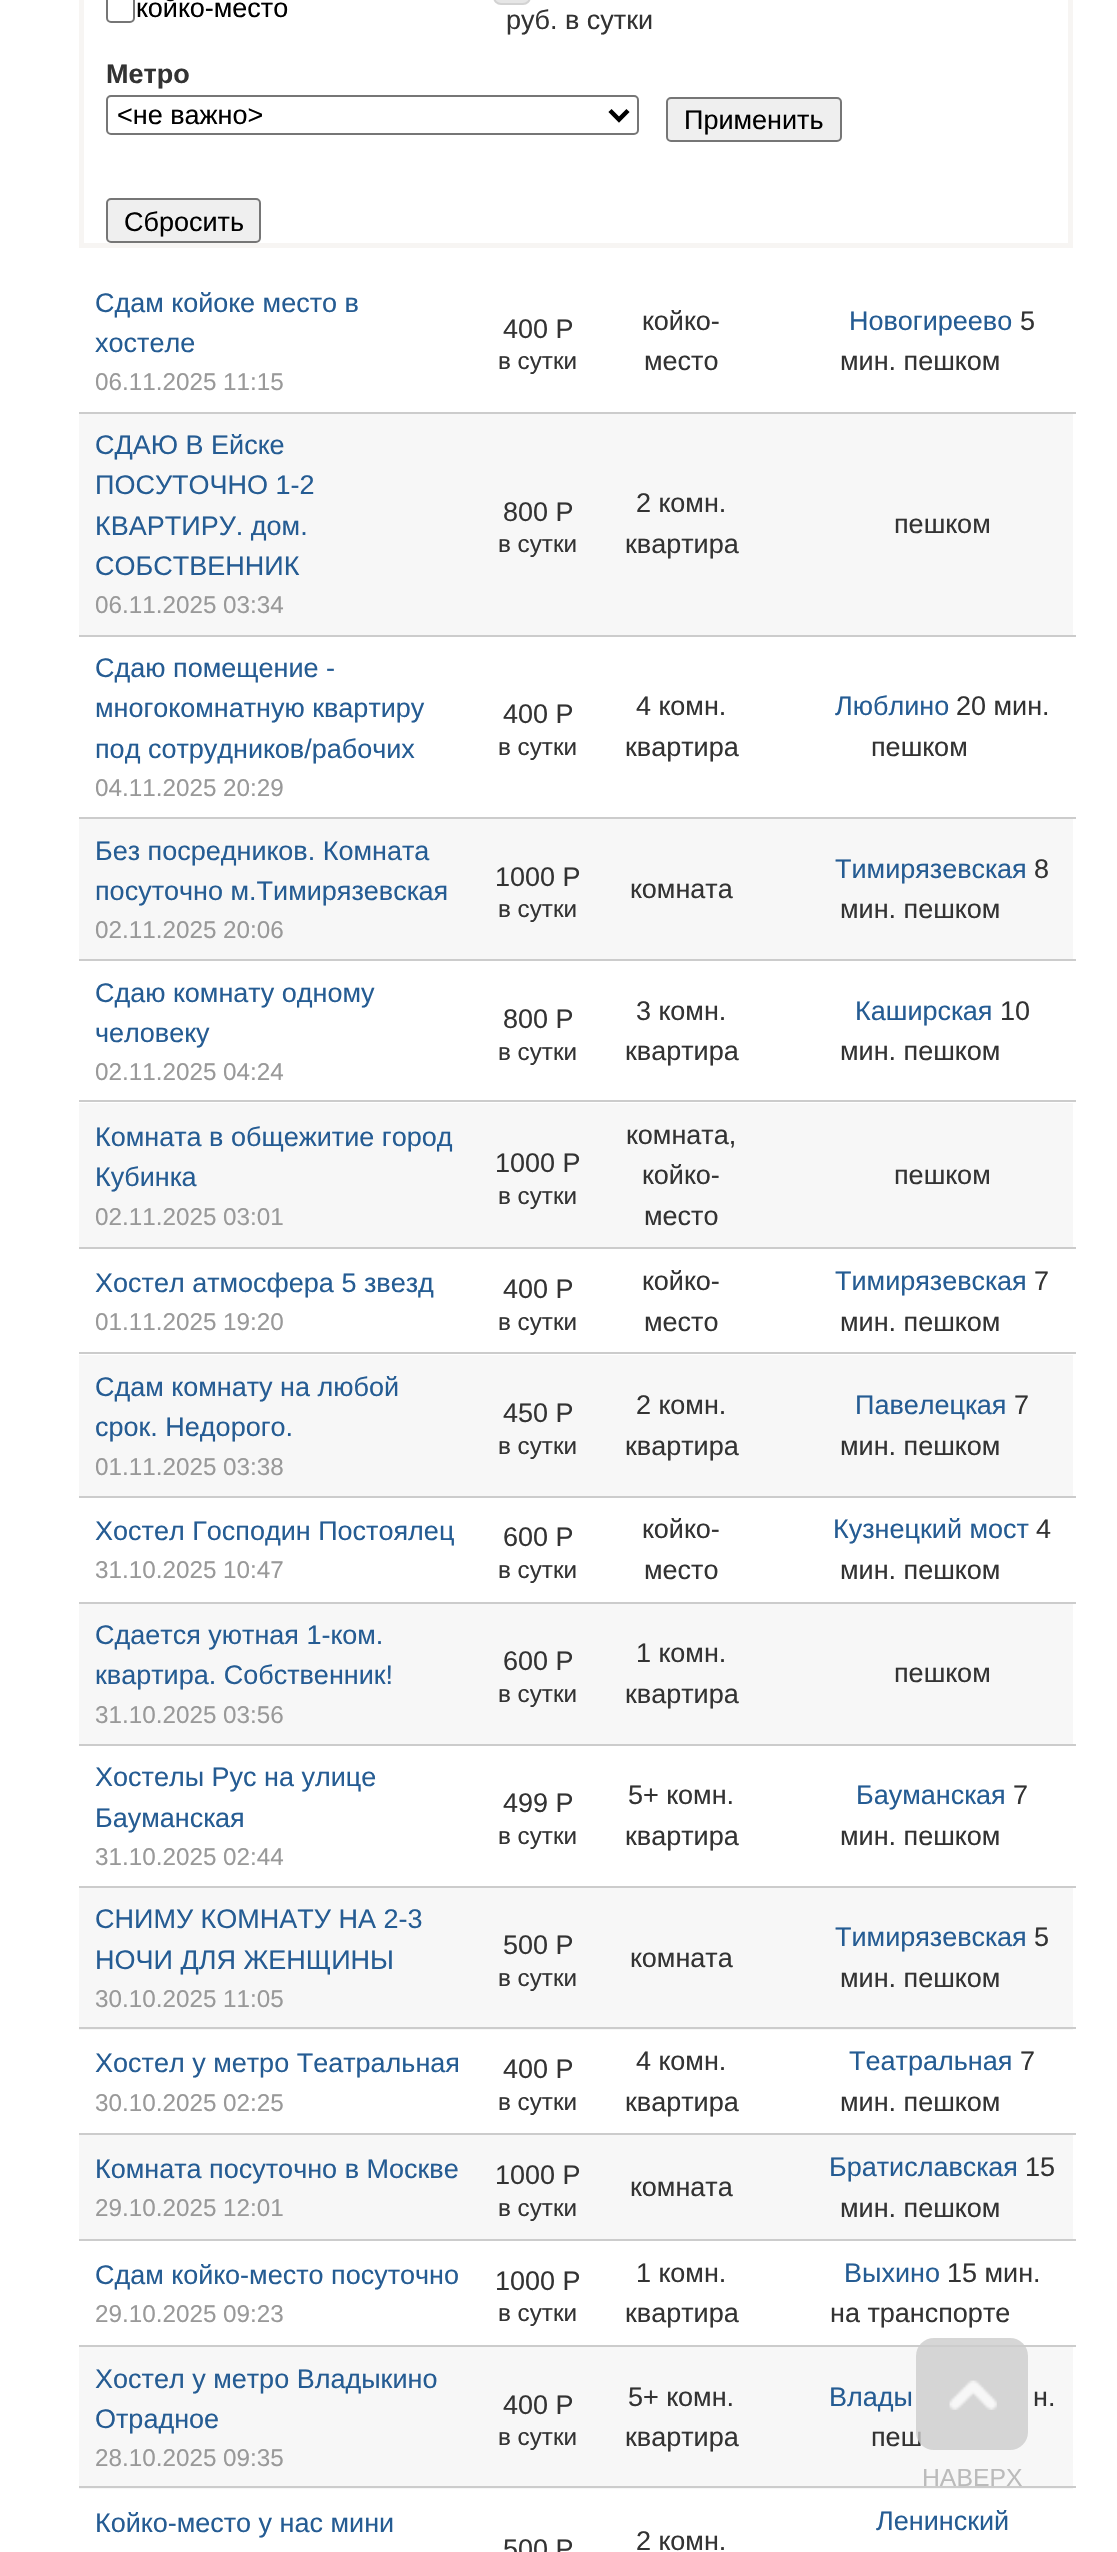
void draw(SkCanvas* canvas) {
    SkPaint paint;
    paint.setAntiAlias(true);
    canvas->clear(0xFFFFFFFF);
    paint.setStyle(SkPaint::kStroke_Style);
    paint.setStrokeWidth(5);
    paint.setColor(0xFFF7F5F3);
    canvas->drawRect(SkRect::MakeXYWH(81.5f, -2.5f, 989, 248), paint);
    paint.setStrokeWidth(2);
    paint.setColor(0xFF767676);
    canvas->drawRoundRect(SkRect::MakeXYWH(107, -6, 27, 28), 4, 4, paint);
    SkFont font1(fontMgr->matchFamilyStyle("Liberation Sans", SkFontStyle::Normal()), 27);
    font1.setSubpixel(true);
    paint.setStyle(SkPaint::kFill_Style);
    paint.setColor(0xFF000000);
    canvas->drawString("койко-место", 136, 17, font1, paint);
    paint.setColor(0xFFE6E6E6);
    canvas->drawRoundRect(SkRect::MakeXYWH(494, -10, 36, 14), 8, 8, paint);
    paint.setStyle(SkPaint::kStroke_Style);
    paint.setColor(0xFFD3D3D3);
    canvas->drawRoundRect(SkRect::MakeXYWH(494, -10, 36, 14), 8, 8, paint);
    paint.setStyle(SkPaint::kFill_Style);
    paint.setColor(0xFF333333);
    canvas->drawString("руб. в сутки", 506, 29, font1, paint);
    SkFont font2(fontMgr->matchFamilyStyle("Liberation Sans", SkFontStyle::Bold()), 27);
    font2.setSubpixel(true);
    canvas->drawString("Метро", 106, 83, font2, paint);
    paint.setStyle(SkPaint::kStroke_Style);
    paint.setColor(0xFF767676);
    canvas->drawRoundRect(SkRect::MakeXYWH(107, 96, 531, 38), 4, 4, paint);
    paint.setStrokeWidth(4.5f);
    paint.setColor(0xFF000000);
    canvas->drawPath(SkPathBuilder().moveTo(610, 110.5f).lineTo(619, 119.5f).lineTo(628, 110.5f).detach(), paint);
    paint.setStyle(SkPaint::kFill_Style);
    canvas->drawString("<не важно>", 117, 124, font1, paint);
    paint.setColor(0xFFEFEFEF);
    canvas->drawRoundRect(SkRect::MakeXYWH(667, 98, 174, 43), 4, 4, paint);
    paint.setStyle(SkPaint::kStroke_Style);
    paint.setStrokeWidth(2);
    paint.setColor(0xFF767676);
    canvas->drawRoundRect(SkRect::MakeXYWH(667, 98, 174, 43), 4, 4, paint);
    paint.setStyle(SkPaint::kFill_Style);
    paint.setColor(0xFF000000);
    canvas->drawString("Применить", 684, 129, font1, paint);
    paint.setColor(0xFFEFEFEF);
    canvas->drawRoundRect(SkRect::MakeXYWH(107, 199, 153, 43), 4, 4, paint);
    paint.setStyle(SkPaint::kStroke_Style);
    paint.setColor(0xFF767676);
    canvas->drawRoundRect(SkRect::MakeXYWH(107, 199, 153, 43), 4, 4, paint);
    paint.setStyle(SkPaint::kFill_Style);
    paint.setColor(0xFF000000);
    canvas->drawString("Сбросить", 124, 231, font1, paint);
    paint.setColor(0xFFCCCCCC);
    canvas->drawRect(SkRect::MakeXYWH(79, 412, 997, 2), paint);
    paint.setColor(0xFF255C93);
    canvas->drawString("Сдам койоке место в", 95, 312, font1, paint);
    canvas->drawString("хостеле", 95, 352, font1, paint);
    SkFont font3(fontMgr->matchFamilyStyle("Liberation Sans", SkFontStyle::Normal()), 24.25f);
    font3.setSubpixel(true);
    paint.setColor(0xFF999999);
    canvas->drawString("06.11.2025 11:15", 95, 390, font3, paint);
    paint.setColor(0xFF333333);
    canvas->drawString("400 Р", 503, 338, font1, paint);
    canvas->drawString("в сутки", 498, 369, font3, paint);
    canvas->drawString("койко-", 642, 330, font1, paint);
    canvas->drawString("место", 644, 370, font1, paint);
    paint.setColor(0xFF255C93);
    canvas->drawString("Новогиреево", 849, 330, font1, paint);
    paint.setColor(0xFF333333);
    canvas->drawString("5", 1020, 330, font1, paint);
    canvas->drawString("мин. пешком", 840, 370, font1, paint);
    paint.setColor(0xFFF7F7F7);
    canvas->drawRect(SkRect::MakeXYWH(79, 414, 994, 221), paint);
    paint.setColor(0xFFCCCCCC);
    canvas->drawRect(SkRect::MakeXYWH(79, 635, 997, 2), paint);
    paint.setColor(0xFF255C93);
    canvas->drawString("СДАЮ В Ейске", 95, 454, font1, paint);
    canvas->drawString("ПОСУТОЧНО 1-2", 95, 494, font1, paint);
    canvas->drawString("КВАРТИРУ. дом.", 95, 535, font1, paint);
    canvas->drawString("СОБСТВЕННИК", 95, 575, font1, paint);
    paint.setColor(0xFF999999);
    canvas->drawString("06.11.2025 03:34", 95, 613, font3, paint);
    paint.setColor(0xFF333333);
    canvas->drawString("800 Р", 503, 521, font1, paint);
    canvas->drawString("в сутки", 498, 552, font3, paint);
    canvas->drawString("2 комн.", 636, 512, font1, paint);
    canvas->drawString("квартира", 625, 553, font1, paint);
    canvas->drawString("пешком", 894, 533, font1, paint);
    paint.setColor(0xFFCCCCCC);
    canvas->drawRect(SkRect::MakeXYWH(79, 817, 997, 2), paint);
    paint.setColor(0xFF255C93);
    canvas->drawString("Сдаю помещение -", 95, 677, font1, paint);
    canvas->drawString("многокомнатную квартиру", 95, 717, font1, paint);
    canvas->drawString("под сотрудников/рабочих", 95, 758, font1, paint);
    paint.setColor(0xFF999999);
    canvas->drawString("04.11.2025 20:29", 95, 796, font3, paint);
    paint.setColor(0xFF333333);
    canvas->drawString("400 Р", 503, 723, font1, paint);
    canvas->drawString("в сутки", 498, 755, font3, paint);
    canvas->drawString("4 комн.", 636, 715, font1, paint);
    canvas->drawString("квартира", 625, 756, font1, paint);
    paint.setColor(0xFF255C93);
    canvas->drawString("Люблино", 835, 715, font1, paint);
    paint.setColor(0xFF333333);
    canvas->drawString("20 мин.", 956, 715, font1, paint);
    canvas->drawString("пешком", 871, 756, font1, paint);
    paint.setColor(0xFFF7F7F7);
    canvas->drawRect(SkRect::MakeXYWH(79, 819, 994, 140), paint);
    paint.setColor(0xFFCCCCCC);
    canvas->drawRect(SkRect::MakeXYWH(79, 959, 997, 2), paint);
    paint.setColor(0xFF255C93);
    canvas->drawString("Без посредников. Комната", 95, 860, font1, paint);
    canvas->drawString("посуточно м.Тимирязевская", 95, 900, font1, paint);
    paint.setColor(0xFF999999);
    canvas->drawString("02.11.2025 20:06", 95, 938, font3, paint);
    paint.setColor(0xFF333333);
    canvas->drawString("1000 Р", 495, 886, font1, paint);
    canvas->drawString("в сутки", 498, 917, font3, paint);
    canvas->drawString("комната", 630, 898, font1, paint);
    paint.setColor(0xFF255C93);
    canvas->drawString("Тимирязевская", 835, 878, font1, paint);
    paint.setColor(0xFF333333);
    canvas->drawString("8", 1034, 878, font1, paint);
    canvas->drawString("мин. пешком", 840, 918, font1, paint);
    paint.setColor(0xFFCCCCCC);
    canvas->drawRect(SkRect::MakeXYWH(79, 1100, 997, 2), paint);
    paint.setColor(0xFF255C93);
    canvas->drawString("Сдаю комнату одному", 95, 1002, font1, paint);
    canvas->drawString("человеку", 95, 1042, font1, paint);
    paint.setColor(0xFF999999);
    canvas->drawString("02.11.2025 04:24", 95, 1080, font3, paint);
    paint.setColor(0xFF333333);
    canvas->drawString("800 Р", 503, 1028, font1, paint);
    canvas->drawString("в сутки", 498, 1060, font3, paint);
    canvas->drawString("3 комн.", 636, 1020, font1, paint);
    canvas->drawString("квартира", 625, 1060, font1, paint);
    paint.setColor(0xFF255C93);
    canvas->drawString("Каширская", 855, 1020, font1, paint);
    paint.setColor(0xFF333333);
    canvas->drawString("10", 1000, 1020, font1, paint);
    canvas->drawString("мин. пешком", 840, 1060, font1, paint);
    paint.setColor(0xFFF7F7F7);
    canvas->drawRect(SkRect::MakeXYWH(79, 1103, 994, 144), paint);
    paint.setColor(0xFFCCCCCC);
    canvas->drawRect(SkRect::MakeXYWH(79, 1247, 997, 2), paint);
    paint.setColor(0xFF255C93);
    canvas->drawString("Комната в общежитие город", 95, 1146, font1, paint);
    canvas->drawString("Кубинка", 95, 1186, font1, paint);
    paint.setColor(0xFF999999);
    canvas->drawString("02.11.2025 03:01", 95, 1225, font3, paint);
    paint.setColor(0xFF333333);
    canvas->drawString("1000 Р", 495, 1172, font1, paint);
    canvas->drawString("в сутки", 498, 1204, font3, paint);
    canvas->drawString("комната,", 626, 1144, font1, paint);
    canvas->drawString("койко-", 642, 1184, font1, paint);
    canvas->drawString("место", 644, 1225, font1, paint);
    canvas->drawString("пешком", 894, 1184, font1, paint);
    paint.setColor(0xFFCCCCCC);
    canvas->drawRect(SkRect::MakeXYWH(79, 1352, 997, 2), paint);
    paint.setColor(0xFF255C93);
    canvas->drawString("Хостел атмосфера 5 звезд", 95, 1292, font1, paint);
    paint.setColor(0xFF999999);
    canvas->drawString("01.11.2025 19:20", 95, 1330, font3, paint);
    paint.setColor(0xFF333333);
    canvas->drawString("400 Р", 503, 1298, font1, paint);
    canvas->drawString("в сутки", 498, 1330, font3, paint);
    canvas->drawString("койко-", 642, 1290, font1, paint);
    canvas->drawString("место", 644, 1331, font1, paint);
    paint.setColor(0xFF255C93);
    canvas->drawString("Тимирязевская", 835, 1290, font1, paint);
    paint.setColor(0xFF333333);
    canvas->drawString("7", 1034, 1290, font1, paint);
    canvas->drawString("мин. пешком", 840, 1331, font1, paint);
    paint.setColor(0xFFF7F7F7);
    canvas->drawRect(SkRect::MakeXYWH(79, 1355, 994, 141), paint);
    paint.setColor(0xFFCCCCCC);
    canvas->drawRect(SkRect::MakeXYWH(79, 1496, 997, 2), paint);
    paint.setColor(0xFF255C93);
    canvas->drawString("Сдам комнату на любой", 95, 1396, font1, paint);
    canvas->drawString("срок. Недорого.", 95, 1436, font1, paint);
    paint.setColor(0xFF999999);
    canvas->drawString("01.11.2025 03:38", 95, 1475, font3, paint);
    paint.setColor(0xFF333333);
    canvas->drawString("450 Р", 503, 1422, font1, paint);
    canvas->drawString("в сутки", 498, 1454, font3, paint);
    canvas->drawString("2 комн.", 636, 1414, font1, paint);
    canvas->drawString("квартира", 625, 1455, font1, paint);
    paint.setColor(0xFF255C93);
    canvas->drawString("Павелецкая", 855, 1414, font1, paint);
    paint.setColor(0xFF333333);
    canvas->drawString("7", 1014, 1414, font1, paint);
    canvas->drawString("мин. пешком", 840, 1455, font1, paint);
    paint.setColor(0xFFCCCCCC);
    canvas->drawRect(SkRect::MakeXYWH(79, 1602, 997, 2), paint);
    paint.setColor(0xFF255C93);
    canvas->drawString("Хостел Господин Постоялец", 95, 1540, font1, paint);
    paint.setColor(0xFF999999);
    canvas->drawString("31.10.2025 10:47", 95, 1578, font3, paint);
    paint.setColor(0xFF333333);
    canvas->drawString("600 Р", 503, 1546, font1, paint);
    canvas->drawString("в сутки", 498, 1578, font3, paint);
    canvas->drawString("койко-", 642, 1538, font1, paint);
    canvas->drawString("место", 644, 1579, font1, paint);
    paint.setColor(0xFF255C93);
    canvas->drawString("Кузнецкий мост", 833, 1538, font1, paint);
    paint.setColor(0xFF333333);
    canvas->drawString("4", 1036, 1538, font1, paint);
    canvas->drawString("мин. пешком", 840, 1579, font1, paint);
    paint.setColor(0xFFF7F7F7);
    canvas->drawRect(SkRect::MakeXYWH(79, 1604, 994, 140), paint);
    paint.setColor(0xFFCCCCCC);
    canvas->drawRect(SkRect::MakeXYWH(79, 1744, 997, 2), paint);
    paint.setColor(0xFF255C93);
    canvas->drawString("Сдается уютная 1-ком.", 95, 1644, font1, paint);
    canvas->drawString("квартира. Собственник!", 95, 1684, font1, paint);
    paint.setColor(0xFF999999);
    canvas->drawString("31.10.2025 03:56", 95, 1723, font3, paint);
    paint.setColor(0xFF333333);
    canvas->drawString("600 Р", 503, 1670, font1, paint);
    canvas->drawString("в сутки", 498, 1702, font3, paint);
    canvas->drawString("1 комн.", 636, 1662, font1, paint);
    canvas->drawString("квартира", 625, 1703, font1, paint);
    canvas->drawString("пешком", 894, 1682, font1, paint);
    paint.setColor(0xFFCCCCCC);
    canvas->drawRect(SkRect::MakeXYWH(79, 1886, 997, 2), paint);
    paint.setColor(0xFF255C93);
    canvas->drawString("Хостелы Рус на улице", 95, 1786, font1, paint);
    canvas->drawString("Бауманская", 95, 1827, font1, paint);
    paint.setColor(0xFF999999);
    canvas->drawString("31.10.2025 02:44", 95, 1865, font3, paint);
    paint.setColor(0xFF333333);
    canvas->drawString("499 Р", 503, 1812, font1, paint);
    canvas->drawString("в сутки", 498, 1844, font3, paint);
    canvas->drawString("5+ комн.", 628, 1804, font1, paint);
    canvas->drawString("квартира", 625, 1845, font1, paint);
    paint.setColor(0xFF255C93);
    canvas->drawString("Бауманская", 856, 1804, font1, paint);
    paint.setColor(0xFF333333);
    canvas->drawString("7", 1013, 1804, font1, paint);
    canvas->drawString("мин. пешком", 840, 1845, font1, paint);
    paint.setColor(0xFFF7F7F7);
    canvas->drawRect(SkRect::MakeXYWH(79, 1888, 994, 142), paint);
    paint.setColor(0xFFCCCCCC);
    canvas->drawRect(SkRect::MakeXYWH(79, 2027, 997, 2), paint);
    paint.setColor(0xFF255C93);
    canvas->drawString("СНИМУ КОМНАТУ НА 2-3", 95, 1928, font1, paint);
    canvas->drawString("НОЧИ ДЛЯ ЖЕНЩИНЫ", 95, 1969, font1, paint);
    paint.setColor(0xFF999999);
    canvas->drawString("30.10.2025 11:05", 95, 2007, font3, paint);
    paint.setColor(0xFF333333);
    canvas->drawString("500 Р", 503, 1954, font1, paint);
    canvas->drawString("в сутки", 498, 1986, font3, paint);
    canvas->drawString("комната", 630, 1967, font1, paint);
    paint.setColor(0xFF255C93);
    canvas->drawString("Тимирязевская", 835, 1946, font1, paint);
    paint.setColor(0xFF333333);
    canvas->drawString("5", 1034, 1946, font1, paint);
    canvas->drawString("мин. пешком", 840, 1987, font1, paint);
    paint.setColor(0xFFCCCCCC);
    canvas->drawRect(SkRect::MakeXYWH(79, 2133, 997, 2), paint);
    paint.setColor(0xFF255C93);
    canvas->drawString("Хостел у метро Театральная", 95, 2072, font1, paint);
    paint.setColor(0xFF999999);
    canvas->drawString("30.10.2025 02:25", 95, 2111, font3, paint);
    paint.setColor(0xFF333333);
    canvas->drawString("400 Р", 503, 2078, font1, paint);
    canvas->drawString("в сутки", 498, 2110, font3, paint);
    canvas->drawString("4 комн.", 636, 2070, font1, paint);
    canvas->drawString("квартира", 625, 2111, font1, paint);
    paint.setColor(0xFF255C93);
    canvas->drawString("Театральная", 849, 2070, font1, paint);
    paint.setColor(0xFF333333);
    canvas->drawString("7", 1020, 2070, font1, paint);
    canvas->drawString("мин. пешком", 840, 2111, font1, paint);
    paint.setColor(0xFFF7F7F7);
    canvas->drawRect(SkRect::MakeXYWH(79, 2135, 994, 104), paint);
    paint.setColor(0xFFCCCCCC);
    canvas->drawRect(SkRect::MakeXYWH(79, 2239, 997, 2), paint);
    paint.setColor(0xFF255C93);
    canvas->drawString("Комната посуточно в Москве", 95, 2178, font1, paint);
    paint.setColor(0xFF999999);
    canvas->drawString("29.10.2025 12:01", 95, 2216, font3, paint);
    paint.setColor(0xFF333333);
    canvas->drawString("1000 Р", 495, 2184, font1, paint);
    canvas->drawString("в сутки", 498, 2216, font3, paint);
    canvas->drawString("комната", 630, 2196, font1, paint);
    paint.setColor(0xFF255C93);
    canvas->drawString("Братиславская", 829, 2176, font1, paint);
    paint.setColor(0xFF333333);
    canvas->drawString("15", 1025, 2176, font1, paint);
    canvas->drawString("мин. пешком", 840, 2217, font1, paint);
    paint.setColor(0xFFCCCCCC);
    canvas->drawRect(SkRect::MakeXYWH(79, 2345, 997, 2), paint);
    paint.setColor(0xFF255C93);
    canvas->drawString("Сдам койко-место посуточно", 95, 2284, font1, paint);
    paint.setColor(0xFF999999);
    canvas->drawString("29.10.2025 09:23", 95, 2322, font3, paint);
    paint.setColor(0xFF333333);
    canvas->drawString("1000 Р", 495, 2290, font1, paint);
    canvas->drawString("в сутки", 498, 2321, font3, paint);
    canvas->drawString("1 комн.", 636, 2282, font1, paint);
    canvas->drawString("квартира", 625, 2322, font1, paint);
    paint.setColor(0xFF255C93);
    canvas->drawString("Выхино", 844, 2282, font1, paint);
    paint.setColor(0xFF333333);
    canvas->drawString("15 мин.", 947, 2282, font1, paint);
    canvas->drawString("на транспорте", 830, 2322, font1, paint);
    paint.setColor(0xFFF7F7F7);
    canvas->drawRect(SkRect::MakeXYWH(79, 2347, 994, 142), paint);
    paint.setColor(0xFFCCCCCC);
    canvas->drawRect(SkRect::MakeXYWH(79, 2486, 997, 2), paint);
    paint.setColor(0xFF255C93);
    canvas->drawString("Хостел у метро Владыкино", 95, 2388, font1, paint);
    canvas->drawString("Отрадное", 95, 2428, font1, paint);
    paint.setColor(0xFF999999);
    canvas->drawString("28.10.2025 09:35", 95, 2466, font3, paint);
    paint.setColor(0xFF333333);
    canvas->drawString("400 Р", 503, 2414, font1, paint);
    canvas->drawString("в сутки", 498, 2445, font3, paint);
    canvas->drawString("5+ комн.", 628, 2406, font1, paint);
    canvas->drawString("квартира", 625, 2446, font1, paint);
    paint.setColor(0xFF255C93);
    canvas->drawString("Влады", 829, 2406, font1, paint);
    paint.setColor(0xFF333333);
    canvas->drawString("н.", 1033, 2406, font1, paint);
    canvas->drawString("пеш", 871, 2446, font1, paint);
    paint.setColor(0xFF255C93);
    canvas->drawString("Койко-место у нас мини", 95, 2532, font1, paint);
    canvas->drawString("Ленинский", 876, 2530, font1, paint);
    paint.setColor(0xFF333333);
    canvas->drawString("500 Р", 503, 2558, font1, paint);
    canvas->drawString("2 комн.", 636, 2550, font1, paint);
    paint.setColor(0xCCCCCCCC);
    canvas->drawRoundRect(SkRect::MakeXYWH(916, 2338, 112, 112), 18, 18, paint);
    canvas->drawImageRect(SkImages::DeferredFromEncodedData(SkData::MakeFromFileName("img1.png")), SkRect::MakeXYWH(949, 2380, 48, 30), SkSamplingOptions());
    SkFont font4(fontMgr->matchFamilyStyle("Liberation Sans", SkFontStyle::Normal()), 24.75f);
    font4.setSubpixel(true);
    paint.setColor(0xFFBBBBBB);
    canvas->drawString("НАВЕРХ", 922, 2486, font4, paint);
}
